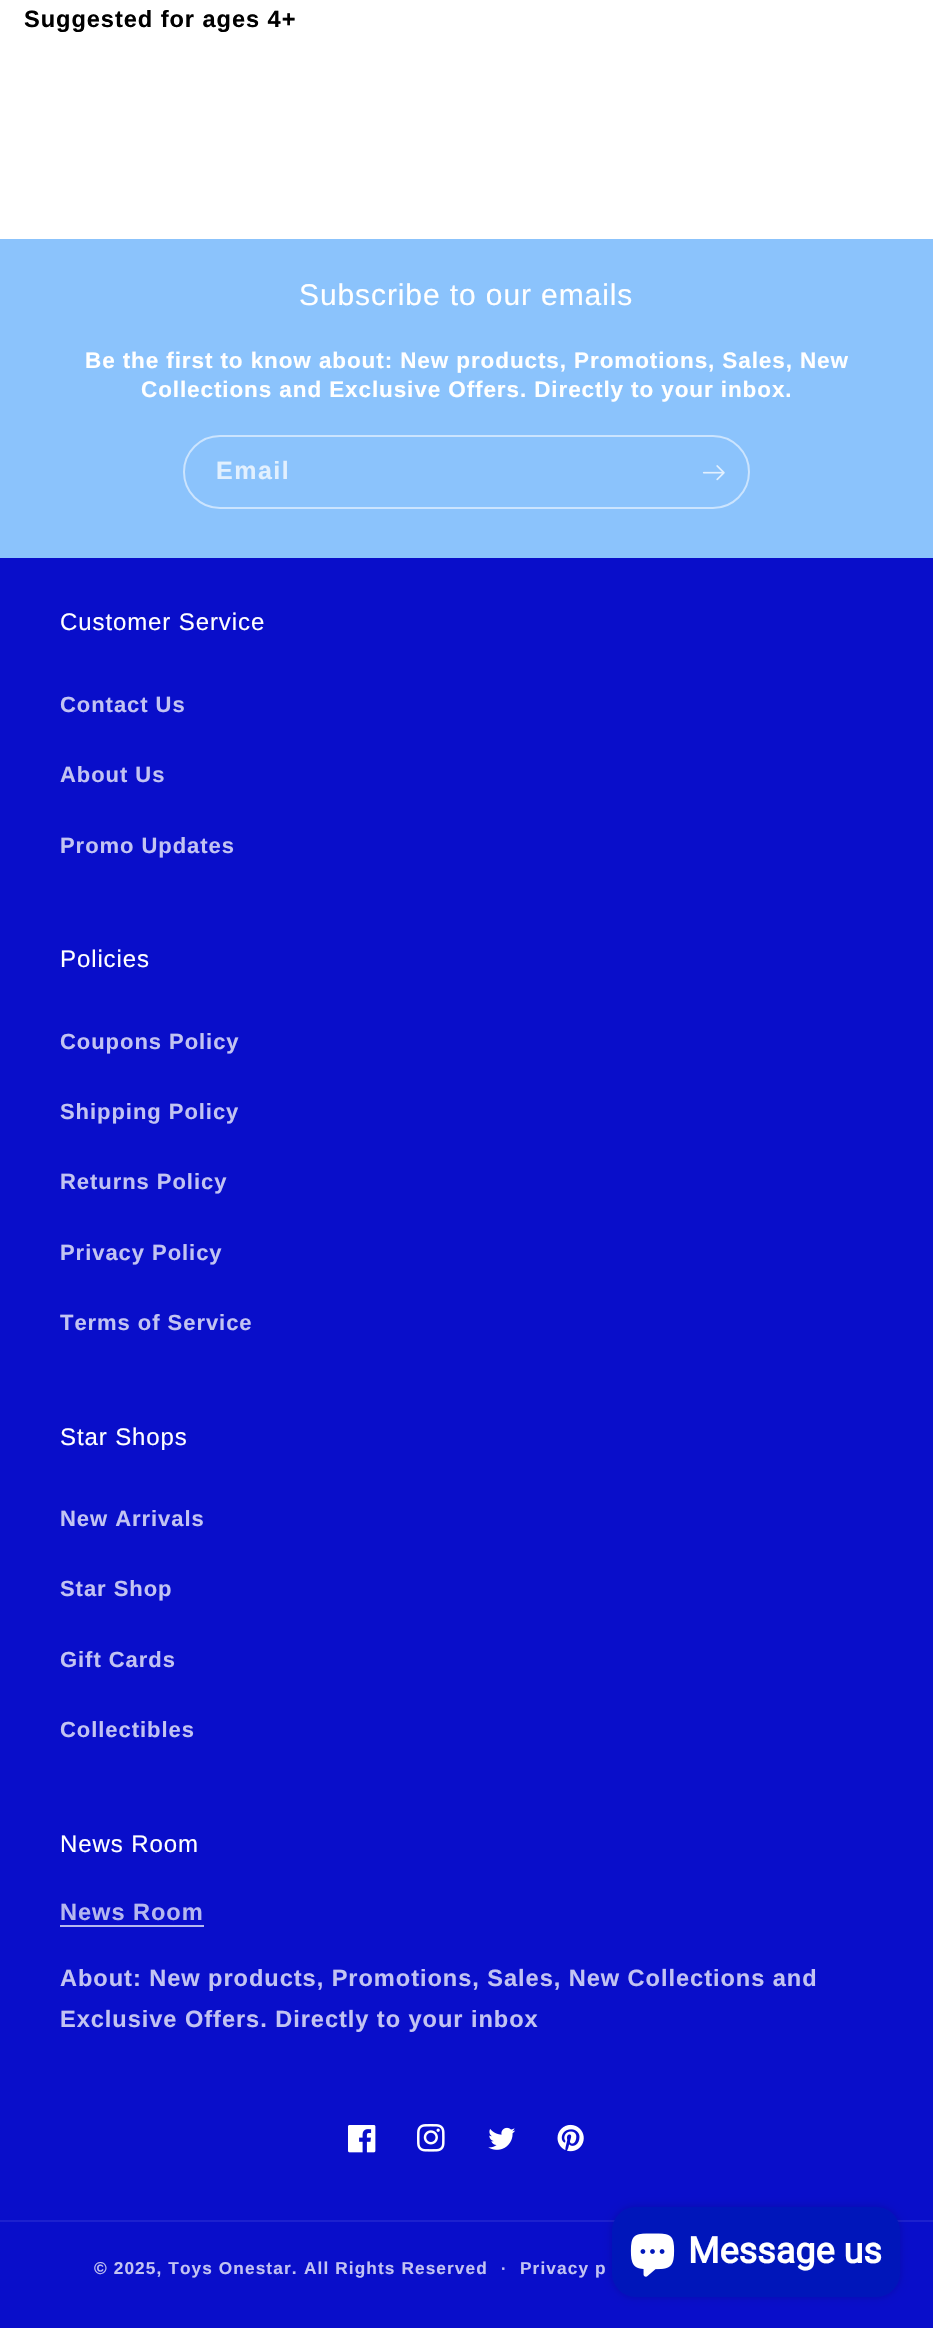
void draw(SkCanvas* canvas) {
    SkPaint paint;
    paint.setAntiAlias(true);
    auto spacedText = [&](const char* s, float x, float y, const SkFont& font, const SkPaint& ink, float letter, float word) {
        std::vector<SkGlyphID> glyphs(font.countText(s, strlen(s), SkTextEncoding::kUTF8));
        std::vector<float> xs(glyphs.size());
        font.textToGlyphs(s, strlen(s), SkTextEncoding::kUTF8, glyphs);
        font.getXPos(glyphs, xs, x);
        float extra = 0;
        for (size_t i = 0; i < glyphs.size(); i++) {
            xs[i] += extra;
            extra += letter + word * (glyphs[i] == font.unicharToGlyph(' '));
        }
        canvas->drawTextBlob(SkTextBlob::MakeFromPosHGlyphs(glyphs, xs, y, font), 0, 0, ink);
    };
    canvas->clear(0xFFFFFFFF);
    SkFont font1(fontMgr->matchFamilyStyle("Arimo", SkFontStyle::Bold()), 23.6f);
    font1.setSubpixel(true);
    paint.setColor(0xFF000000);
    spacedText("Suggested for ages 4+", 24, 27, font1, paint, 0.95f, 0);
    paint.setColor(0xFF8BC3FC);
    canvas->drawRect(SkRect::MakeXYWH(0, 239, 933, 319), paint);
    SkFont font2(fontMgr->matchFamilyStyle("Arimo", SkFontStyle::Normal()), 30);
    font2.setSubpixel(true);
    paint.setColor(0xFFFFFFFF);
    spacedText("Subscribe to our emails", 299, 305, font2, paint, 0.9f, 0);
    SkFont font3(fontMgr->matchFamilyStyle("Arimo", SkFontStyle::Bold()), 22.5f);
    font3.setSubpixel(true);
    spacedText("Be the first to know about: New products, Promotions, Sales, New", 85, 368, font3, paint, 0.9f, 0);
    spacedText("Collections and Exclusive Offers. Directly to your inbox.", 141, 397, font3, paint, 0.9f, 0);
    paint.setStyle(SkPaint::kStroke_Style);
    paint.setStrokeWidth(2);
    paint.setColor(0xFFCBE4FE);
    canvas->drawRoundRect(SkRect::MakeXYWH(184, 436, 565, 72), 36, 36, paint);
    SkFont font4(fontMgr->matchFamilyStyle("Arimo", SkFontStyle::Bold()), 25);
    font4.setSubpixel(true);
    paint.setStyle(SkPaint::kFill_Style);
    paint.setColor(0xFFE2F0FE);
    spacedText("Email", 216, 479, font4, paint, 1.5f, 0);
    canvas->drawImageRect(SkImages::DeferredFromEncodedData(SkData::MakeFromFileName("img1.png")), SkRect::MakeXYWH(702, 465, 23, 16), SkSamplingOptions());
    paint.setColor(0xFF090ECA);
    canvas->drawRect(SkRect::MakeXYWH(0, 558, 933, 1770), paint);
    SkFont font5(fontMgr->matchFamilyStyle("Arimo", SkFontStyle::Normal()), 24);
    font5.setSubpixel(true);
    paint.setColor(0xFFFFFFFF);
    spacedText("Customer Service", 60, 630, font5, paint, 0.9f, 0);
    SkFont font6(fontMgr->matchFamilyStyle("Arimo", SkFontStyle::Bold()), 22);
    font6.setSubpixel(true);
    paint.setColor(0xFFC2C3F2);
    spacedText("Contact Us", 60, 712, font6, paint, 0.95f, 0);
    spacedText("About Us", 60, 782, font6, paint, 0.95f, 0);
    spacedText("Promo Updates", 60, 853, font6, paint, 0.95f, 0);
    paint.setColor(0xFFFFFFFF);
    spacedText("Policies", 60, 967, font5, paint, 0.9f, 0);
    paint.setColor(0xFFC2C3F2);
    spacedText("Coupons Policy", 60, 1049, font6, paint, 0.95f, 0);
    spacedText("Shipping Policy", 60, 1119, font6, paint, 0.95f, 0);
    spacedText("Returns Policy", 60, 1189, font6, paint, 0.95f, 0);
    spacedText("Privacy Policy", 60, 1260, font6, paint, 0.95f, 0);
    spacedText("Terms of Service", 60, 1330, font6, paint, 0.95f, 0);
    paint.setColor(0xFFFFFFFF);
    spacedText("Star Shops", 60, 1445, font5, paint, 0.9f, 0);
    paint.setColor(0xFFC2C3F2);
    spacedText("New Arrivals", 60, 1526, font6, paint, 0.95f, 0);
    spacedText("Star Shop", 60, 1596, font6, paint, 0.95f, 0);
    spacedText("Gift Cards", 60, 1667, font6, paint, 0.95f, 0);
    spacedText("Collectibles", 60, 1737, font6, paint, 0.95f, 0);
    paint.setColor(0xFFFFFFFF);
    spacedText("News Room", 60, 1852, font5, paint, 0.9f, 0);
    paint.setColor(0xFFB5B7EF);
    spacedText("News Room", 60, 1920, font1, paint, 0.95f, 0);
    canvas->drawRect(SkRect::MakeXYWH(60, 1925, 144, 2), paint);
    paint.setColor(0xFFC2C3F2);
    spacedText("About: New products, Promotions, Sales, New Collections and", 60, 1986, font1, paint, 0.95f, 0);
    spacedText("Exclusive Offers. Directly to your inbox", 60, 2027, font1, paint, 0.95f, 0);
    canvas->drawImageRect(SkImages::DeferredFromEncodedData(SkData::MakeFromFileName("img2.png")), SkRect::MakeXYWH(348, 2125, 28, 28), SkSamplingOptions());
    canvas->drawImageRect(SkImages::DeferredFromEncodedData(SkData::MakeFromFileName("img3.png")), SkRect::MakeXYWH(417, 2124, 28, 28), SkSamplingOptions());
    canvas->drawImageRect(SkImages::DeferredFromEncodedData(SkData::MakeFromFileName("img4.png")), SkRect::MakeXYWH(488, 2127, 28, 23), SkSamplingOptions());
    canvas->drawImageRect(SkImages::DeferredFromEncodedData(SkData::MakeFromFileName("img5.png")), SkRect::MakeXYWH(557, 2124, 27, 28), SkSamplingOptions());
    paint.setColor(0xFF1D21CE);
    canvas->drawRect(SkRect::MakeXYWH(0, 2220, 933, 2), paint);
    SkFont font7(fontMgr->matchFamilyStyle("Arimo", SkFontStyle::Bold()), 17.25f);
    font7.setSubpixel(true);
    paint.setColor(0xFFC2C3F2);
    spacedText("© 2025, Toys Onestar.", 94, 2274, font7, paint, 1.1f, 0);
    spacedText("All Rights Reserved", 304, 2274, font7, paint, 1.1f, 0);
    SkFont font8(fontMgr->matchFamilyStyle("Arimo", SkFontStyle::Bold()), 16);
    font8.setSubpixel(true);
    spacedText("·", 501, 2274, font8, paint, 1.1f, 0);
    spacedText("Privacy p", 520, 2274, font7, paint, 1.1f, 0);
    paint.setColor(0x26000000);
    paint.setMaskFilter(SkMaskFilter::MakeBlur(kNormal_SkBlurStyle, 4));
    canvas->drawRoundRect(SkRect::MakeXYWH(612, 2207, 288, 90), 24, 24, paint);
    paint.setMaskFilter(nullptr);
    paint.setColor(0xFF0016BA);
    canvas->drawRoundRect(SkRect::MakeXYWH(612, 2207, 288, 90), 24, 24, paint);
    canvas->drawImageRect(SkImages::DeferredFromEncodedData(SkData::MakeFromFileName("img6.png")), SkRect::MakeXYWH(630, 2233, 45, 44), SkSamplingOptions());
    SkFont font9(fontMgr->matchFamilyStyle("Roboto", SkFontStyle::Bold()), 36);
    font9.setSubpixel(true);
    paint.setColor(0xFFFFFFFF);
    canvas->drawString("Message us", 688, 2263, font9, paint);
}
